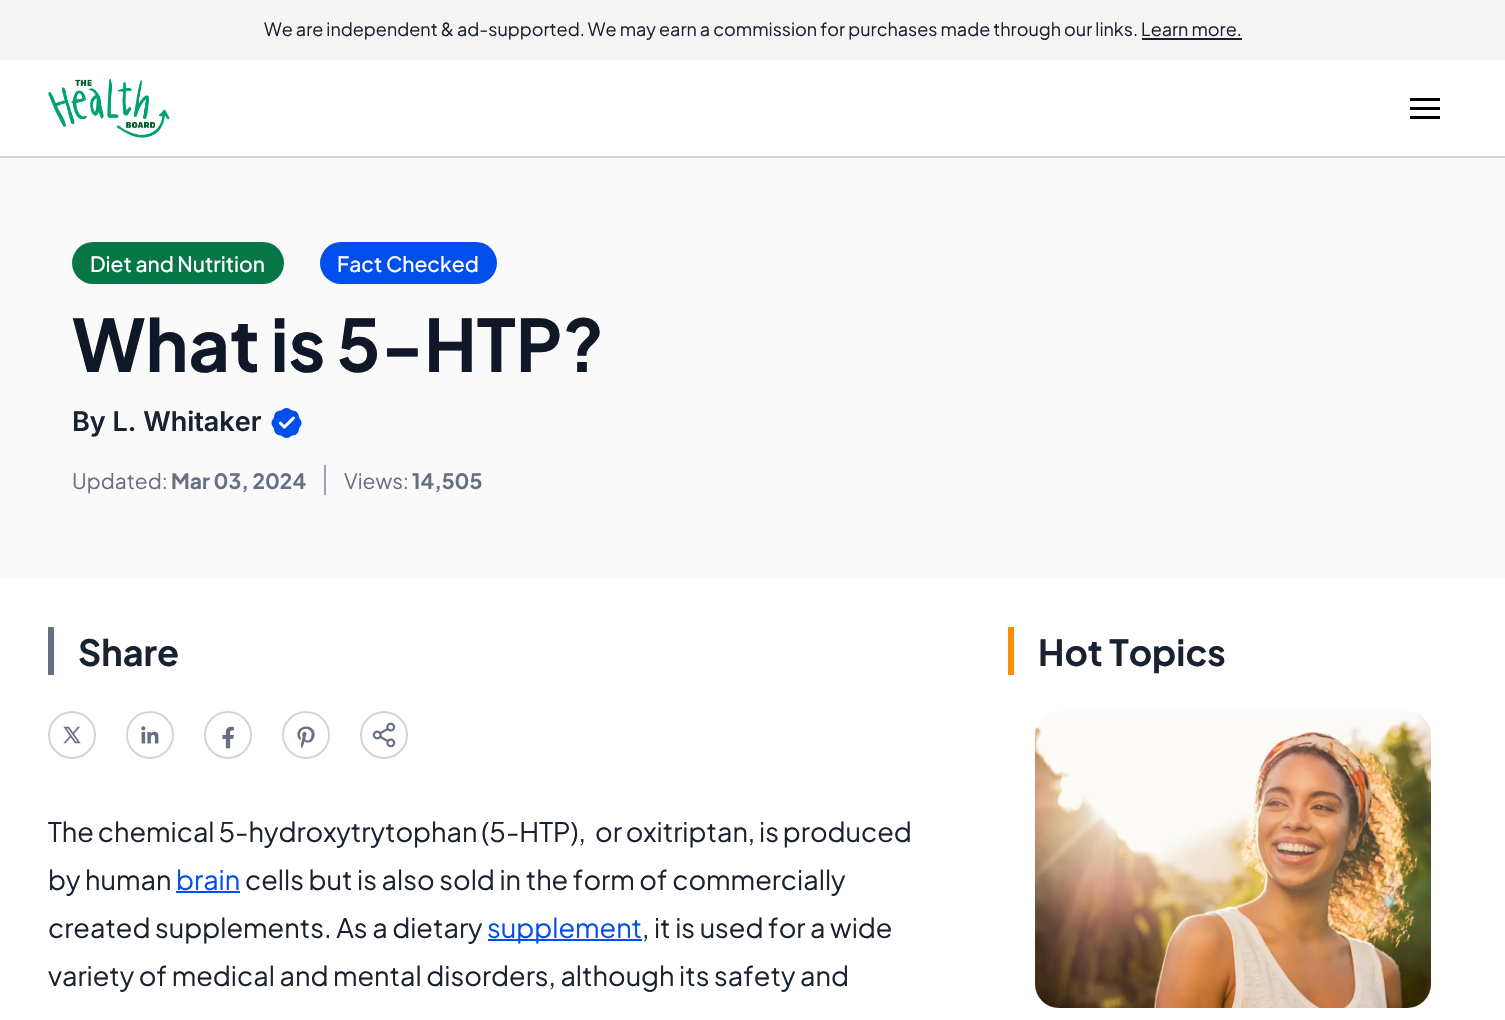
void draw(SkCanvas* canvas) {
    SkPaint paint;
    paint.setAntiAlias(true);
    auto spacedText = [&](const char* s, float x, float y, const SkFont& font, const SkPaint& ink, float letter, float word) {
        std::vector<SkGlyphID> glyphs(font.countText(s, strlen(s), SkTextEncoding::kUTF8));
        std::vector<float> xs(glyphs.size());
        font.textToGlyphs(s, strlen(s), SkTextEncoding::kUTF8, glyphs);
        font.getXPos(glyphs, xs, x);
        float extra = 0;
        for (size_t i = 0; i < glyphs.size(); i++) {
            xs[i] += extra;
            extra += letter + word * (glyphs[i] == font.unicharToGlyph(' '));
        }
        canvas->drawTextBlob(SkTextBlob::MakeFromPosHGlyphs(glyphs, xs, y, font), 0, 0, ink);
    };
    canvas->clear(0xFFFFFFFF);
    paint.setColor(0xFFF5F5F5);
    canvas->drawRect(SkRect::MakeXYWH(0, 0, 1505, 60), paint);
    SkFont font1(fontMgr->matchFamilyStyle("Plus Jakarta Sans", SkFontStyle::Normal()), 18);
    font1.setSubpixel(true);
    paint.setColor(0xFF182230);
    canvas->drawString("We are independent & ad-supported. We may earn a commission for purchases made through our links. Learn more.", 264, 36, font1, paint);
    canvas->drawRect(SkRect::MakeXYWH(1142, 38, 100, 2), paint);
    paint.setColor(0xFFD5D5D5);
    canvas->drawRect(SkRect::MakeXYWH(0, 156, 1505, 2), paint);
    canvas->drawImageRect(SkImages::DeferredFromEncodedData(SkData::MakeFromFileName("img1.png")), SkRect::MakeXYWH(48, 79, 122, 59), SkSamplingOptions());
    paint.setColor(0xFF000000);
    canvas->drawRect(SkRect::MakeXYWH(1410, 107, 30, 3), paint);
    canvas->drawRect(SkRect::MakeXYWH(1410, 98, 30, 3), paint);
    canvas->drawRect(SkRect::MakeXYWH(1410, 116, 30, 3), paint);
    paint.setColor(0xFFFAFAFA);
    canvas->drawRect(SkRect::MakeXYWH(0, 158, 1505, 421), paint);
    paint.setColor(0xFF067647);
    canvas->drawRoundRect(SkRect::MakeXYWH(72, 242, 212, 42), 21, 21, paint);
    SkFont font2(fontMgr->matchFamilyStyle("Plus Jakarta Sans", SkFontStyle(500, SkFontStyle::kNormal_Width, SkFontStyle::kUpright_Slant)), 21);
    font2.setSubpixel(true);
    paint.setColor(0xFFFFFFFF);
    canvas->drawString("Diet and Nutrition", 90, 272, font2, paint);
    paint.setColor(0xFF004EEB);
    canvas->drawRoundRect(SkRect::MakeXYWH(320, 242, 177, 42), 21, 21, paint);
    paint.setColor(0xFFFFFFFF);
    canvas->drawString("Fact Checked", 337, 272, font2, paint);
    SkFont font3(fontMgr->matchFamilyStyle("Plus Jakarta Sans", SkFontStyle::Bold()), 72);
    font3.setSubpixel(true);
    paint.setColor(0xFF101828);
    spacedText("What is 5-HTP?", 72, 372, font3, paint, 0, -2);
    SkFont font4(fontMgr->matchFamilyStyle("Inter", SkFontStyle(600, SkFontStyle::kNormal_Width, SkFontStyle::kUpright_Slant)), 27);
    font4.setSubpixel(true);
    paint.setColor(0xFF182230);
    canvas->drawString("By L. Whitaker", 72, 431, font4, paint);
    canvas->drawImageRect(SkImages::DeferredFromEncodedData(SkData::MakeFromFileName("img2.png")), SkRect::MakeXYWH(271, 408, 31, 30), SkSamplingOptions());
    SkFont font5(fontMgr->matchFamilyStyle("Plus Jakarta Sans", SkFontStyle::Normal()), 21);
    font5.setSubpixel(true);
    paint.setColor(0xFF667085);
    canvas->drawString("Updated:", 72, 489, font5, paint);
    SkFont font6(fontMgr->matchFamilyStyle("Plus Jakarta Sans", SkFontStyle::Bold()), 21);
    font6.setSubpixel(true);
    canvas->drawString("Mar 03, 2024", 171, 489, font6, paint);
    paint.setColor(0xFF98A2B3);
    canvas->drawRect(SkRect::MakeXYWH(324, 465, 2, 30), paint);
    paint.setColor(0xFF667085);
    canvas->drawString("Views:", 344, 489, font5, paint);
    canvas->drawString("14,505", 412, 489, font6, paint);
    canvas->drawRect(SkRect::MakeXYWH(48, 627, 6, 48), paint);
    SkFont font7(fontMgr->matchFamilyStyle("Plus Jakarta Sans", SkFontStyle::Bold()), 36);
    font7.setSubpixel(true);
    paint.setColor(0xFF182230);
    canvas->drawString("Share", 78, 666, font7, paint);
    paint.setStyle(SkPaint::kStroke_Style);
    paint.setStrokeWidth(2);
    paint.setColor(0xFFD5D5D5);
    canvas->drawCircle(72, 735, 23, paint);
    canvas->drawImageRect(SkImages::DeferredFromEncodedData(SkData::MakeFromFileName("img3.png")), SkRect::MakeXYWH(63, 726, 18, 18), SkSamplingOptions());
    canvas->drawCircle(150, 735, 23, paint);
    canvas->drawImageRect(SkImages::DeferredFromEncodedData(SkData::MakeFromFileName("img4.png")), SkRect::MakeXYWH(141, 726, 18, 18), SkSamplingOptions());
    canvas->drawCircle(228, 735, 23, paint);
    canvas->drawImageRect(SkImages::DeferredFromEncodedData(SkData::MakeFromFileName("img5.png")), SkRect::MakeXYWH(222, 726, 12, 23), SkSamplingOptions());
    canvas->drawCircle(306, 735, 23, paint);
    canvas->drawImageRect(SkImages::DeferredFromEncodedData(SkData::MakeFromFileName("img6.png")), SkRect::MakeXYWH(297, 726, 18, 22), SkSamplingOptions());
    canvas->drawCircle(384, 735, 23, paint);
    canvas->drawImageRect(SkImages::DeferredFromEncodedData(SkData::MakeFromFileName("img7.png")), SkRect::MakeXYWH(372, 722, 24, 26), SkSamplingOptions());
    SkFont font8(fontMgr->matchFamilyStyle("Plus Jakarta Sans", SkFontStyle::Normal()), 27);
    font8.setSubpixel(true);
    paint.setStyle(SkPaint::kFill_Style);
    paint.setColor(0xFF182230);
    spacedText("The chemical 5-hydroxytrytophan (5-HTP),", 48, 842, font8, paint, 0, -0.75f);
    spacedText("or oxitriptan, is produced", 595, 842, font8, paint, 0, -0.75f);
    canvas->drawString("by human", 48, 890, font8, paint);
    paint.setColor(0xFF004EEB);
    canvas->drawString("brain", 176, 890, font8, paint);
    canvas->drawRect(SkRect::MakeXYWH(176, 891, 64, 2), paint);
    paint.setColor(0xFF182230);
    canvas->drawString("cells but is also sold in the form of commercially", 245, 890, font8, paint);
    canvas->drawString("created supplements. As a dietary", 48, 938, font8, paint);
    paint.setColor(0xFF004EEB);
    canvas->drawRect(SkRect::MakeXYWH(488, 939, 154, 2), paint);
    canvas->drawString("supplement", 487, 938, font8, paint);
    paint.setColor(0xFF182230);
    canvas->drawString(", it is used for a wide", 642, 938, font8, paint);
    canvas->drawString("variety of medical and mental disorders, although its safety and", 48, 986, font8, paint);
    paint.setColor(0xFFF79009);
    canvas->drawRect(SkRect::MakeXYWH(1008, 627, 6, 48), paint);
    paint.setColor(0xFF182230);
    canvas->drawString("Hot Topics", 1038, 666, font7, paint);
    canvas->drawImageRect(SkImages::DeferredFromEncodedData(SkData::MakeFromFileName("img8.png")), SkRect::MakeXYWH(1035, 711, 396, 297), SkSamplingOptions());
}
